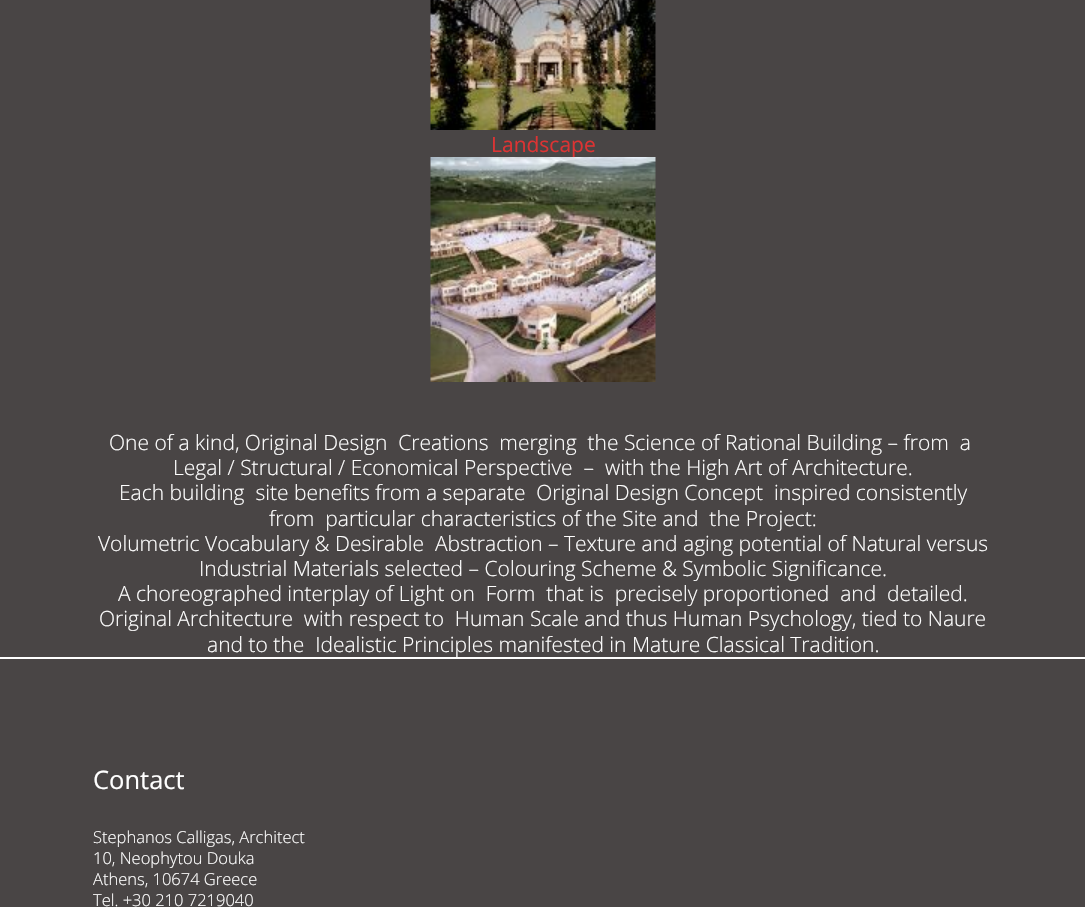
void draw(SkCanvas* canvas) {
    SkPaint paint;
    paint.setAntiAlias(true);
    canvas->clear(0xFF494545);
    canvas->drawImageRect(SkImages::DeferredFromEncodedData(SkData::MakeFromFileName("img1.png")), SkRect::MakeXYWH(430, 0, 226, 130), SkSamplingOptions());
    SkFont font1(fontMgr->matchFamilyStyle("Open Sans", SkFontStyle::Normal()), 21);
    font1.setSubpixel(true);
    paint.setColor(0xFFDD3333);
    canvas->drawString("Landscape", 491, 152, font1, paint);
    canvas->drawImageRect(SkImages::DeferredFromEncodedData(SkData::MakeFromFileName("img2.png")), SkRect::MakeXYWH(430, 157, 226, 225), SkSamplingOptions());
    SkFont font2(fontMgr->matchFamilyStyle("Open Sans", SkFontStyle(300, SkFontStyle::kNormal_Width, SkFontStyle::kUpright_Slant)), 21);
    font2.setSubpixel(true);
    paint.setColor(0xFFFFFFFF);
    canvas->drawString("One of a kind, Original Design  Creations  merging  the Science of Rational Building – from  a", 109, 450, font2, paint);
    canvas->drawString("Legal / Structural / Economical Perspective  –  with the High Art of Architecture.", 173, 475, font2, paint);
    canvas->drawString("Each building  site benefits from a separate  Original Design Concept  inspired consistently", 119, 500, font2, paint);
    canvas->drawString("from  particular characteristics of the Site and  the Project:", 269, 526, font2, paint);
    canvas->drawString("Volumetric Vocabulary & Desirable  Abstraction – Texture and aging potential of Natural versus", 98, 551, font2, paint);
    canvas->drawString("Industrial Materials selected – Colouring Scheme & Symbolic Significance.", 199, 576, font2, paint);
    canvas->drawString("A choreographed interplay of Light on  Form  that is  precisely proportioned  and  detailed.", 118, 601, font2, paint);
    canvas->drawString("Original Architecture  with respect to  Human Scale and thus Human Psychology, tied to Naure", 99, 626, font2, paint);
    canvas->drawString("and to the  Idealistic Principles manifested in Mature Classical Tradition.", 207, 652, font2, paint);
    canvas->drawRect(SkRect::MakeXYWH(0, 657, 1085, 2), paint);
    SkFont font3(fontMgr->matchFamilyStyle("Open Sans", SkFontStyle::Normal()), 25.5f);
    font3.setSubpixel(true);
    canvas->drawString("Contact", 93, 789, font3, paint);
    SkFont font4(fontMgr->matchFamilyStyle("Open Sans", SkFontStyle(300, SkFontStyle::kNormal_Width, SkFontStyle::kUpright_Slant)), 16.5f);
    font4.setSubpixel(true);
    canvas->drawString("Stephanos Calligas, Architect", 93, 843, font4, paint);
    canvas->drawString("10, Neophytou Douka", 93, 864, font4, paint);
    canvas->drawString("Athens, 10674 Greece", 93, 885, font4, paint);
    canvas->drawString("Tel. +30 210 7219040", 93, 906, font4, paint);
}
